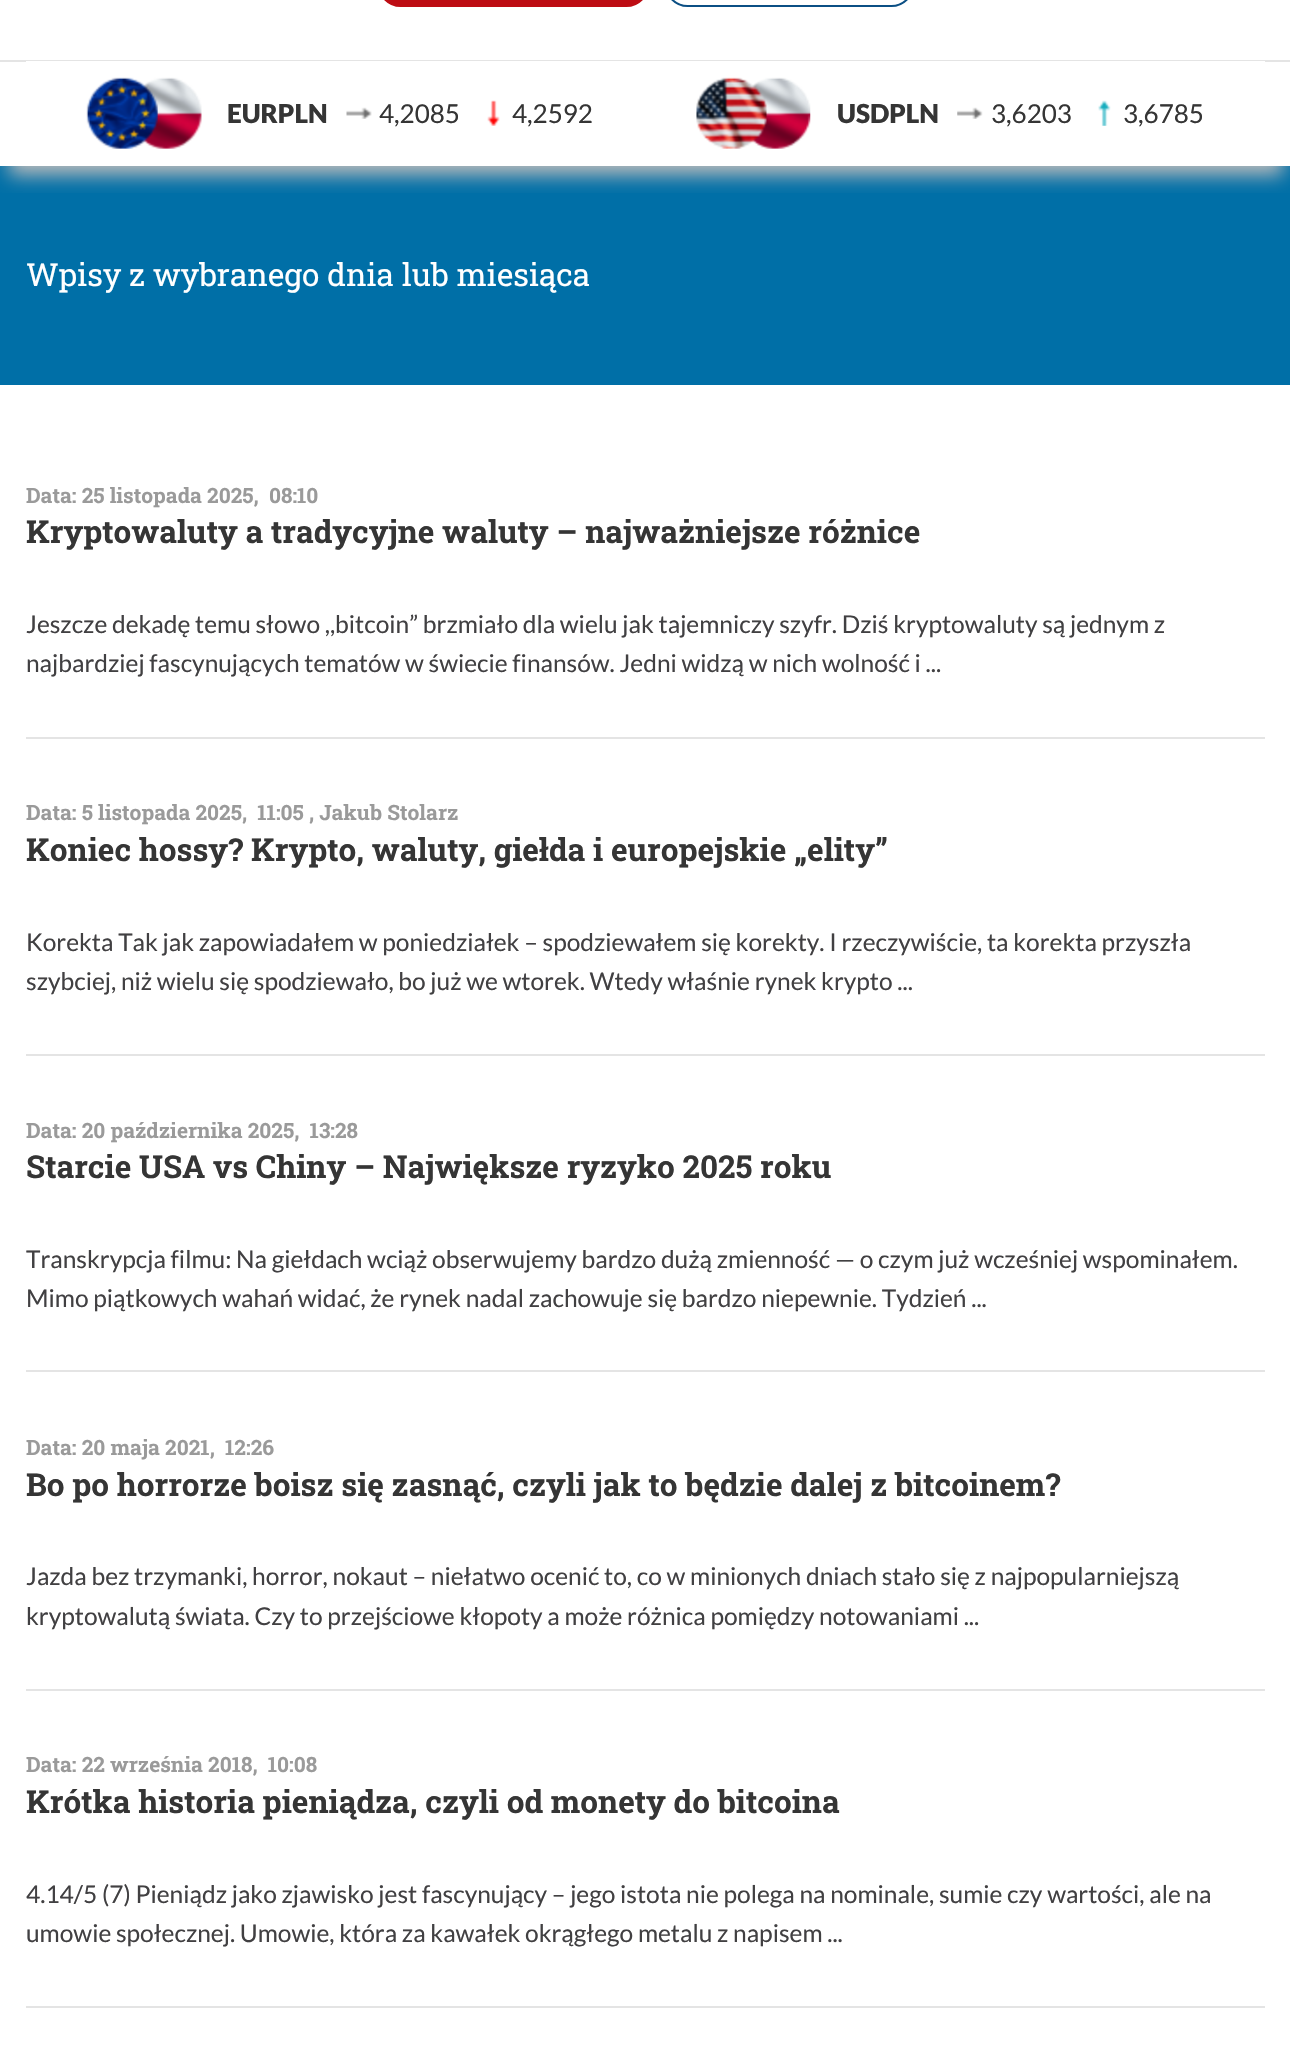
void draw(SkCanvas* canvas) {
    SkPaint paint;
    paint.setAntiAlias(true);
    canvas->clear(0xFFFFFFFF);
    paint.setColor(0xFFBD0C13);
    canvas->drawRoundRect(SkRect::MakeXYWH(379, -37, 269, 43), 35, 35, paint);
    paint.setStyle(SkPaint::kStroke_Style);
    paint.setStrokeWidth(2);
    canvas->drawRoundRect(SkRect::MakeXYWH(379, -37, 269, 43), 35, 35, paint);
    paint.setColor(0xFF0B4F84);
    canvas->drawRoundRect(SkRect::MakeXYWH(666, -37, 247, 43), 35, 35, paint);
    paint.setStyle(SkPaint::kFill_Style);
    paint.setColor(0xFF006FA7);
    canvas->drawRect(SkRect::MakeXYWH(0, 166, 1290, 219), paint);
    canvas->save();
    canvas->clipRect(SkRect::MakeXYWH(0, 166, 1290, 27));
    paint.setColor(0xFFBBBBBB);
    paint.setMaskFilter(SkMaskFilter::MakeBlur(kNormal_SkBlurStyle, 9));
    canvas->drawRect(SkRect::MakeXYWH(9, 86, 1274, 89), paint);
    paint.setMaskFilter(nullptr);
    canvas->restore();
    paint.setColor(0xFFE4E4E4);
    canvas->drawRect(SkRect::MakeXYWH(0, 60, 1290, 2), paint);
    paint.setColor(0xFFFFFFFF);
    canvas->drawRect(SkRect::MakeXYWH(26, 61, 1239, 1), paint);
    canvas->drawImageRect(SkImages::DeferredFromEncodedData(SkData::MakeFromFileName("img2.png")), SkRect::MakeXYWH(141, 77, 61, 72), SkSamplingOptions());
    canvas->drawImageRect(SkImages::DeferredFromEncodedData(SkData::MakeFromFileName("img1.png")), SkRect::MakeXYWH(86, 77, 72, 72), SkSamplingOptions());
    SkFont font1(fontMgr->matchFamilyStyle("Lato", SkFontStyle(900, SkFontStyle::kNormal_Width, SkFontStyle::kUpright_Slant)), 26);
    font1.setSubpixel(true);
    paint.setColor(0xFF353535);
    canvas->drawString("EURPLN", 227, 123, font1, paint);
    canvas->drawImageRect(SkImages::DeferredFromEncodedData(SkData::MakeFromFileName("img3.png")), SkRect::MakeXYWH(346, 107, 26, 12), SkSamplingOptions());
    SkFont font2(fontMgr->matchFamilyStyle("Lato", SkFontStyle::Normal()), 26);
    font2.setSubpixel(true);
    canvas->drawString("4,2085", 379, 123, font2, paint);
    canvas->drawImageRect(SkImages::DeferredFromEncodedData(SkData::MakeFromFileName("img4.png")), SkRect::MakeXYWH(487, 100, 13, 26), SkSamplingOptions());
    canvas->drawString("4,2592", 512, 123, font2, paint);
    canvas->drawImageRect(SkImages::DeferredFromEncodedData(SkData::MakeFromFileName("img6.png")), SkRect::MakeXYWH(750, 77, 61, 72), SkSamplingOptions());
    canvas->drawImageRect(SkImages::DeferredFromEncodedData(SkData::MakeFromFileName("img5.png")), SkRect::MakeXYWH(696, 77, 71, 72), SkSamplingOptions());
    canvas->drawString("USDPLN", 837, 123, font1, paint);
    canvas->drawImageRect(SkImages::DeferredFromEncodedData(SkData::MakeFromFileName("img7.png")), SkRect::MakeXYWH(957, 107, 26, 12), SkSamplingOptions());
    canvas->drawString("3,6203", 991, 123, font2, paint);
    canvas->drawImageRect(SkImages::DeferredFromEncodedData(SkData::MakeFromFileName("img8.png")), SkRect::MakeXYWH(1098, 100, 13, 26), SkSamplingOptions());
    canvas->drawString("3,6785", 1123, 123, font2, paint);
    SkFont font3(fontMgr->matchFamilyStyle("Roboto Slab", SkFontStyle::Normal()), 31.5f);
    font3.setSubpixel(true);
    paint.setColor(0xFFFFFFFF);
    canvas->drawString("Wpisy z wybranego dnia lub miesiąca", 26, 286, font3, paint);
    paint.setColor(0xFFE4E4E4);
    canvas->drawRect(SkRect::MakeXYWH(26, 737, 1239, 2), paint);
    SkFont font4(fontMgr->matchFamilyStyle("Roboto Slab", SkFontStyle::Bold()), 21);
    font4.setSubpixel(true);
    paint.setColor(0xFF9A9A9A);
    canvas->drawString("Data: 25 listopada 2025,  08:10", 26, 503, font4, paint);
    SkFont font5(fontMgr->matchFamilyStyle("Roboto Slab", SkFontStyle::Bold()), 31.5f);
    font5.setSubpixel(true);
    paint.setColor(0xFF353535);
    canvas->drawString("Kryptowaluty a tradycyjne waluty – najważniejsze różnice", 26, 543, font5, paint);
    SkFont font6(fontMgr->matchFamilyStyle("Lato", SkFontStyle::Normal()), 24.5f);
    font6.setSubpixel(true);
    paint.setColor(0xFF414042);
    canvas->drawString("Jeszcze dekadę temu słowo ,,bitcoin” brzmiało dla wielu jak tajemniczy szyfr. Dziś kryptowaluty są jednym z", 26, 633, font6, paint);
    canvas->drawString("najbardziej fascynujących tematów w świecie finansów. Jedni widzą w nich wolność i ...", 26, 672, font6, paint);
    paint.setColor(0xFFE4E4E4);
    canvas->drawRect(SkRect::MakeXYWH(26, 1054, 1239, 2), paint);
    paint.setColor(0xFF9A9A9A);
    canvas->drawString("Data: 5 listopada 2025,  11:05 , Jakub Stolarz", 26, 820, font4, paint);
    paint.setColor(0xFF353535);
    canvas->drawString("Koniec hossy? Krypto, waluty, giełda i europejskie „elity”", 26, 861, font5, paint);
    paint.setColor(0xFF414042);
    canvas->drawString("Korekta Tak jak zapowiadałem w poniedziałek – spodziewałem się korekty. I rzeczywiście, ta korekta przyszła", 26, 951, font6, paint);
    canvas->drawString("szybciej, niż wielu się spodziewało, bo już we wtorek. Wtedy właśnie rynek krypto ...", 26, 990, font6, paint);
    paint.setColor(0xFFE4E4E4);
    canvas->drawRect(SkRect::MakeXYWH(26, 1370, 1239, 2), paint);
    paint.setColor(0xFF9A9A9A);
    canvas->drawString("Data: 20 października 2025,  13:28", 26, 1138, font4, paint);
    paint.setColor(0xFF353535);
    canvas->drawString("Starcie USA vs Chiny – Największe ryzyko 2025 roku", 26, 1178, font5, paint);
    paint.setColor(0xFF414042);
    canvas->drawString("Transkrypcja filmu: Na giełdach wciąż obserwujemy bardzo dużą zmienność — o czym już wcześniej wspominałem.", 26, 1268, font6, paint);
    canvas->drawString("Mimo piątkowych wahań widać, że rynek nadal zachowuje się bardzo niepewnie. Tydzień ...", 26, 1307, font6, paint);
    paint.setColor(0xFFE4E4E4);
    canvas->drawRect(SkRect::MakeXYWH(26, 1689, 1239, 2), paint);
    paint.setColor(0xFF9A9A9A);
    canvas->drawString("Data: 20 maja 2021,  12:26", 26, 1455, font4, paint);
    paint.setColor(0xFF353535);
    canvas->drawString("Bo po horrorze boisz się zasnąć, czyli jak to będzie dalej z bitcoinem?", 26, 1496, font5, paint);
    paint.setColor(0xFF414042);
    canvas->drawString("Jazda bez trzymanki, horror, nokaut – niełatwo ocenić to, co w minionych dniach stało się z najpopularniejszą", 26, 1585, font6, paint);
    canvas->drawString("kryptowalutą świata. Czy to przejściowe kłopoty a może różnica pomiędzy notowaniami ...", 26, 1625, font6, paint);
    paint.setColor(0xFFE4E4E4);
    canvas->drawRect(SkRect::MakeXYWH(26, 2006, 1239, 2), paint);
    paint.setColor(0xFF9A9A9A);
    canvas->drawString("Data: 22 września 2018,  10:08", 26, 1772, font4, paint);
    paint.setColor(0xFF353535);
    canvas->drawString("Krótka historia pieniądza, czyli od monety do bitcoina", 26, 1813, font5, paint);
    paint.setColor(0xFF414042);
    canvas->drawString("4.14/5 (7) Pieniądz jako zjawisko jest fascynujący – jego istota nie polega na nominale, sumie czy wartości, ale na", 26, 1903, font6, paint);
    canvas->drawString("umowie społecznej. Umowie, która za kawałek okrągłego metalu z napisem ...", 26, 1942, font6, paint);
}
